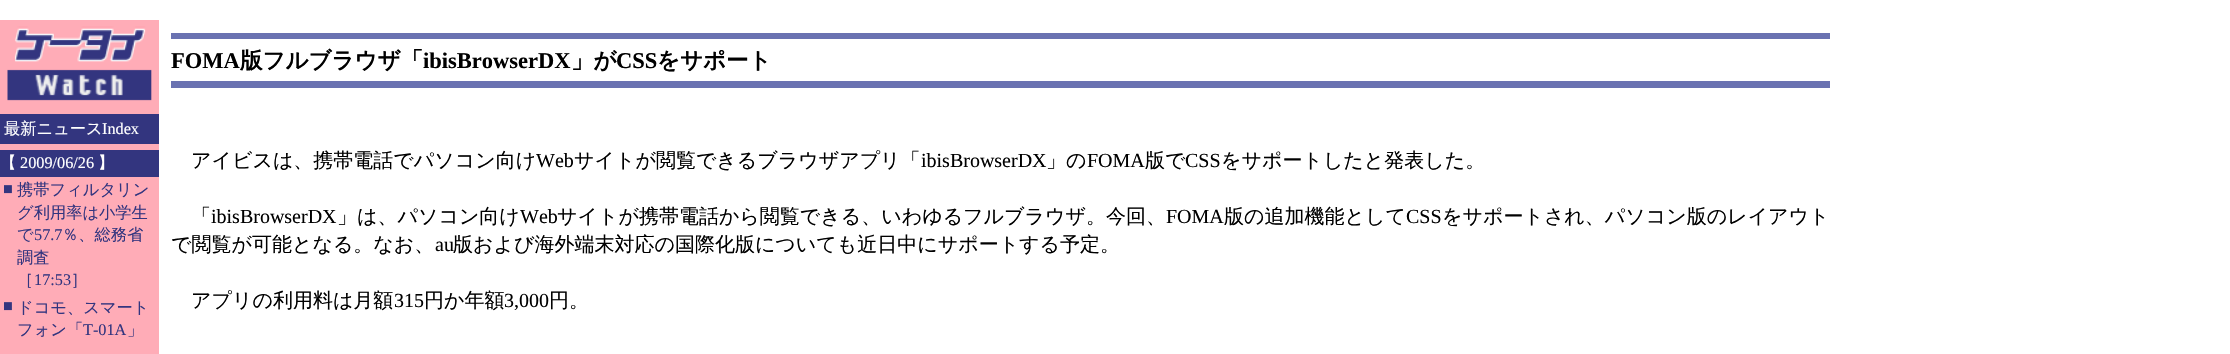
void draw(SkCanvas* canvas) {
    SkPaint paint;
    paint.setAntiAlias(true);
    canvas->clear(0xFFFFFFFF);
    paint.setColor(0xFFFFACB7);
    canvas->drawRect(SkRect::MakeXYWH(0, 20, 159, 334), paint);
    canvas->drawImageRect(SkImages::DeferredFromEncodedData(SkData::MakeFromFileName("img1.png")), SkRect::MakeXYWH(7, 26, 145, 75), SkSamplingOptions());
    paint.setColor(0xFF33357F);
    canvas->drawRect(SkRect::MakeXYWH(0, 114, 159, 30), paint);
    SkFont font1(fontMgr->matchFamilyStyle("WenQuanYi Zen Hei", SkFontStyle(500, SkFontStyle::kNormal_Width, SkFontStyle::kUpright_Slant)), 16.25f);
    font1.setSubpixel(true);
    paint.setColor(0xFFFFFFFF);
    canvas->drawString("最新ニュース", 4, 134, font1, paint);
    SkFont font2(fontMgr->matchFamilyStyle("Liberation Serif", SkFontStyle::Normal()), 16.25f);
    font2.setSubpixel(true);
    canvas->drawString("Index", 102, 134, font2, paint);
    paint.setColor(0xFF33357F);
    canvas->drawRect(SkRect::MakeXYWH(0, 150, 159, 27), paint);
    paint.setColor(0xFFFFFFFF);
    canvas->drawString("【", 0, 168, font1, paint);
    canvas->drawString("2009/06/26", 20, 168, font2, paint);
    canvas->drawString("】", 98, 168, font1, paint);
    paint.setColor(0xFF33357F);
    canvas->drawString("■", 3, 194, font2, paint);
    canvas->drawString("携帯フィルタリン", 17, 195, font1, paint);
    canvas->drawString("グ利用率は小学生", 17, 218, font1, paint);
    canvas->drawString("で", 17, 240, font1, paint);
    canvas->drawString("57.7", 34, 240, font2, paint);
    canvas->drawString("％、総務省", 62, 240, font1, paint);
    canvas->drawString("調査", 17, 263, font1, paint);
    canvas->drawString("［", 17, 285, font1, paint);
    canvas->drawString("17:53", 34, 285, font2, paint);
    canvas->drawString("］", 71, 285, font1, paint);
    canvas->drawString("■", 3, 311, font2, paint);
    canvas->drawString("ドコモ、スマート", 17, 313, font1, paint);
    canvas->drawString("フォン「", 17, 335, font1, paint);
    canvas->drawString("T-01A", 83, 335, font2, paint);
    canvas->drawString("」", 127, 335, font1, paint);
    paint.setColor(0xFF6A72B1);
    canvas->drawRect(SkRect::MakeXYWH(171, 33, 1659, 6), paint);
    SkFont font3(fontMgr->matchFamilyStyle("Liberation Serif", SkFontStyle::Bold()), 22.5f);
    font3.setSubpixel(true);
    paint.setColor(0xFF000000);
    canvas->drawString("FOMA", 171, 68, font3, paint);
    SkFont font4(fontMgr->matchFamilyStyle("WenQuanYi Zen Hei", SkFontStyle::Bold()), 22.5f);
    font4.setSubpixel(true);
    canvas->drawString("版フルブラウザ「", 240, 68, font4, paint);
    canvas->drawString("ibisBrowserDX", 423, 68, font3, paint);
    canvas->drawString("」が", 571, 68, font4, paint);
    canvas->drawString("CSS", 616, 68, font3, paint);
    canvas->drawString("をサポート", 657, 68, font4, paint);
    paint.setColor(0xFF6A72B1);
    canvas->drawRect(SkRect::MakeXYWH(171, 81, 1659, 7), paint);
    SkFont font5(fontMgr->matchFamilyStyle("WenQuanYi Zen Hei", SkFontStyle(500, SkFontStyle::kNormal_Width, SkFontStyle::kUpright_Slant)), 20);
    font5.setSubpixel(true);
    paint.setColor(0xFF000000);
    canvas->drawString("アイビスは、携帯電話でパソコン向け", 191, 167, font5, paint);
    SkFont font6(fontMgr->matchFamilyStyle("Liberation Serif", SkFontStyle::Normal()), 20);
    font6.setSubpixel(true);
    canvas->drawString("Web", 536, 167, font6, paint);
    canvas->drawString("サイトが閲覧できるブラウザアプリ「", 574, 167, font5, paint);
    canvas->drawString("ibisBrowserDX", 921, 167, font6, paint);
    canvas->drawString("」の", 1046, 167, font5, paint);
    canvas->drawString("FOMA", 1087, 167, font6, paint);
    canvas->drawString("版で", 1145, 167, font5, paint);
    canvas->drawString("CSS", 1185, 167, font6, paint);
    canvas->drawString("をサポートしたと発表した。", 1221, 167, font5, paint);
    canvas->drawString("「", 191, 223, font5, paint);
    canvas->drawString("ibisBrowserDX", 211, 223, font6, paint);
    canvas->drawString("」は、パソコン向け", 337, 223, font5, paint);
    canvas->drawString("Web", 520, 223, font6, paint);
    canvas->drawString("サイトが携帯電話から閲覧できる、いわゆるフルブラウザ。今回、", 557, 223, font5, paint);
    canvas->drawString("FOMA", 1166, 223, font6, paint);
    canvas->drawString("版の追加機能として", 1224, 223, font5, paint);
    canvas->drawString("CSS", 1406, 223, font6, paint);
    canvas->drawString("をサポートされ、パソコン版のレイアウト", 1442, 223, font5, paint);
    canvas->drawString("で閲覧が可能となる。なお、", 171, 251, font5, paint);
    canvas->drawString("au", 435, 251, font6, paint);
    canvas->drawString("版および海外端末対応の国際化版についても近日中にサポートする予定。", 453, 251, font5, paint);
    canvas->drawString("アプリの利用料は月額", 191, 307, font5, paint);
    canvas->drawString("315", 394, 307, font6, paint);
    canvas->drawString("円か年額", 424, 307, font5, paint);
    canvas->drawString("3,000", 504, 307, font6, paint);
    canvas->drawString("円。", 549, 307, font5, paint);
}
